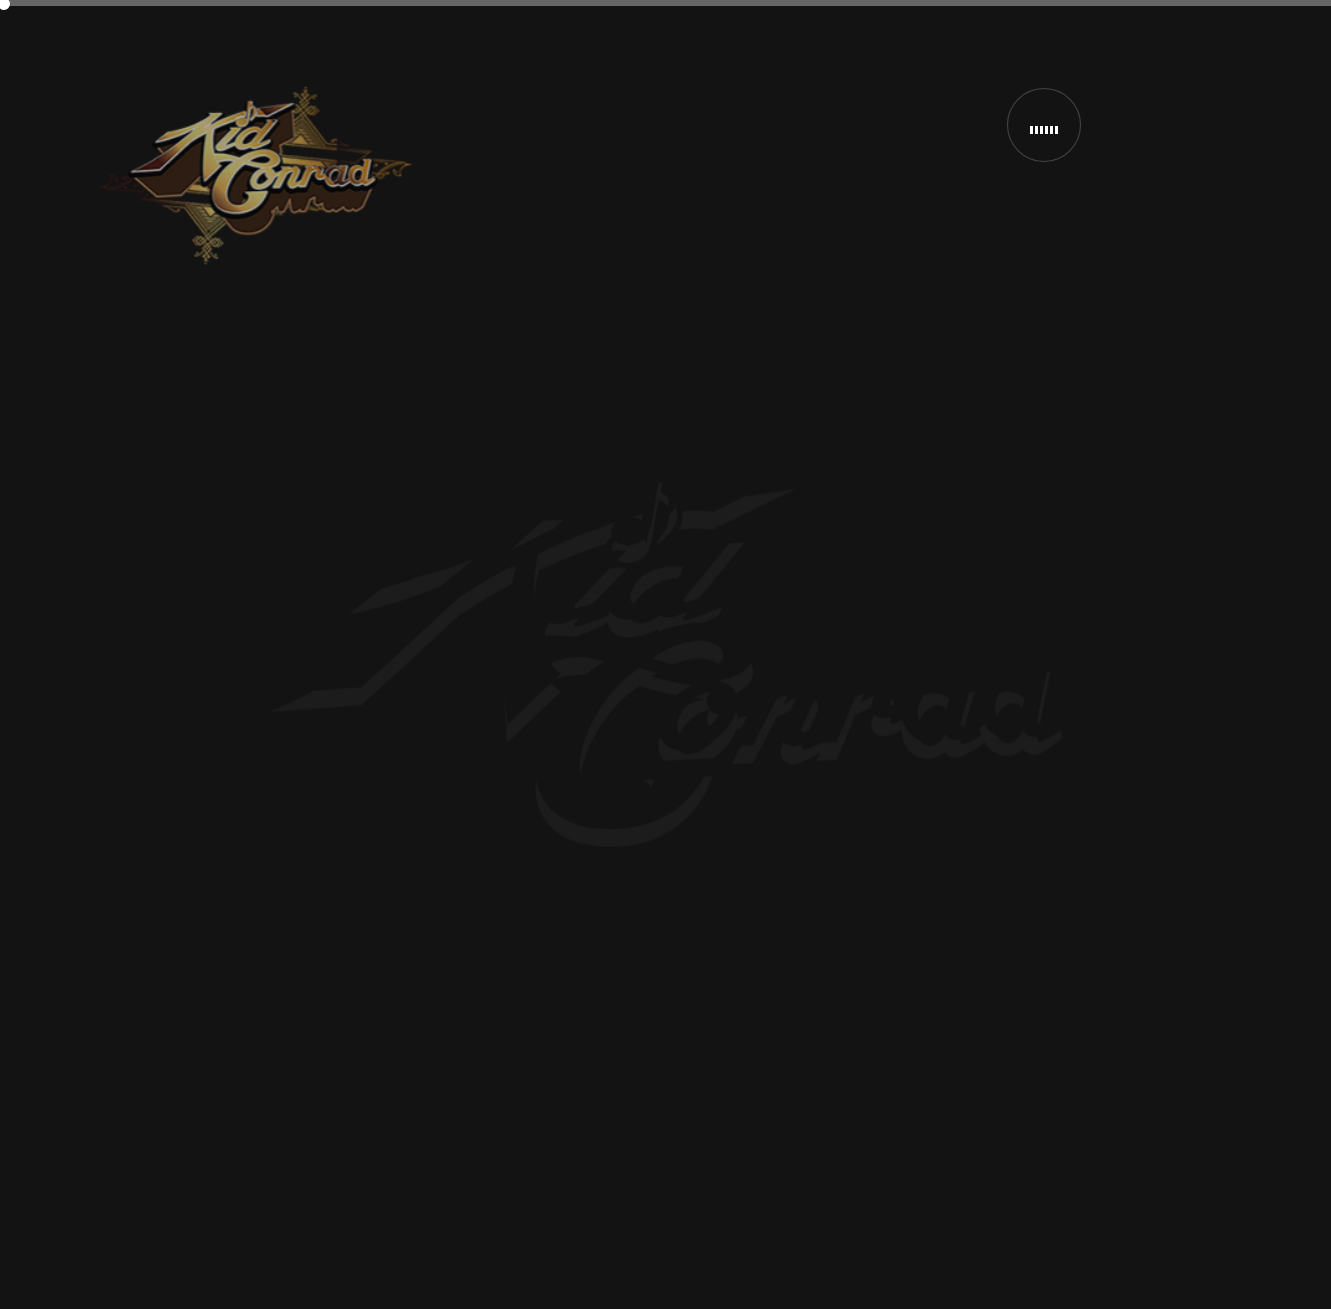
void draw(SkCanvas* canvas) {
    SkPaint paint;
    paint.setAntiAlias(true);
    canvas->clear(0xFF131313);
    paint.setColor(0xFF666666);
    canvas->drawRect(SkRect::MakeXYWH(0, 0, 1331, 6), paint);
    paint.setColor(0xFFFFFFFF);
    canvas->drawCircle(4, 4, 6, paint);
    canvas->drawImageRect(SkImages::DeferredFromEncodedData(SkData::MakeFromFileName("img1.png")), SkRect::MakeXYWH(272, 482, 790, 365), SkSamplingOptions());
    canvas->drawImageRect(SkImages::DeferredFromEncodedData(SkData::MakeFromFileName("img2.png")), SkRect::MakeXYWH(100, 86, 312, 179), SkSamplingOptions());
    paint.setStyle(SkPaint::kStroke_Style);
    paint.setStrokeWidth(1.1f);
    paint.setColor(0xFF424242);
    canvas->drawCircle(1044, 125, 36.5f, paint);
    paint.setStyle(SkPaint::kFill_Style);
    paint.setColor(0xFFFFFFFF);
    canvas->drawRect(SkRect::MakeXYWH(1030, 126, 3, 8), paint);
    canvas->drawRect(SkRect::MakeXYWH(1035, 126, 3, 8), paint);
    canvas->drawRect(SkRect::MakeXYWH(1040, 126, 3, 8), paint);
    canvas->drawRect(SkRect::MakeXYWH(1045, 126, 3, 8), paint);
    canvas->drawRect(SkRect::MakeXYWH(1050, 126, 3, 8), paint);
    canvas->drawRect(SkRect::MakeXYWH(1055, 126, 3, 8), paint);
}
